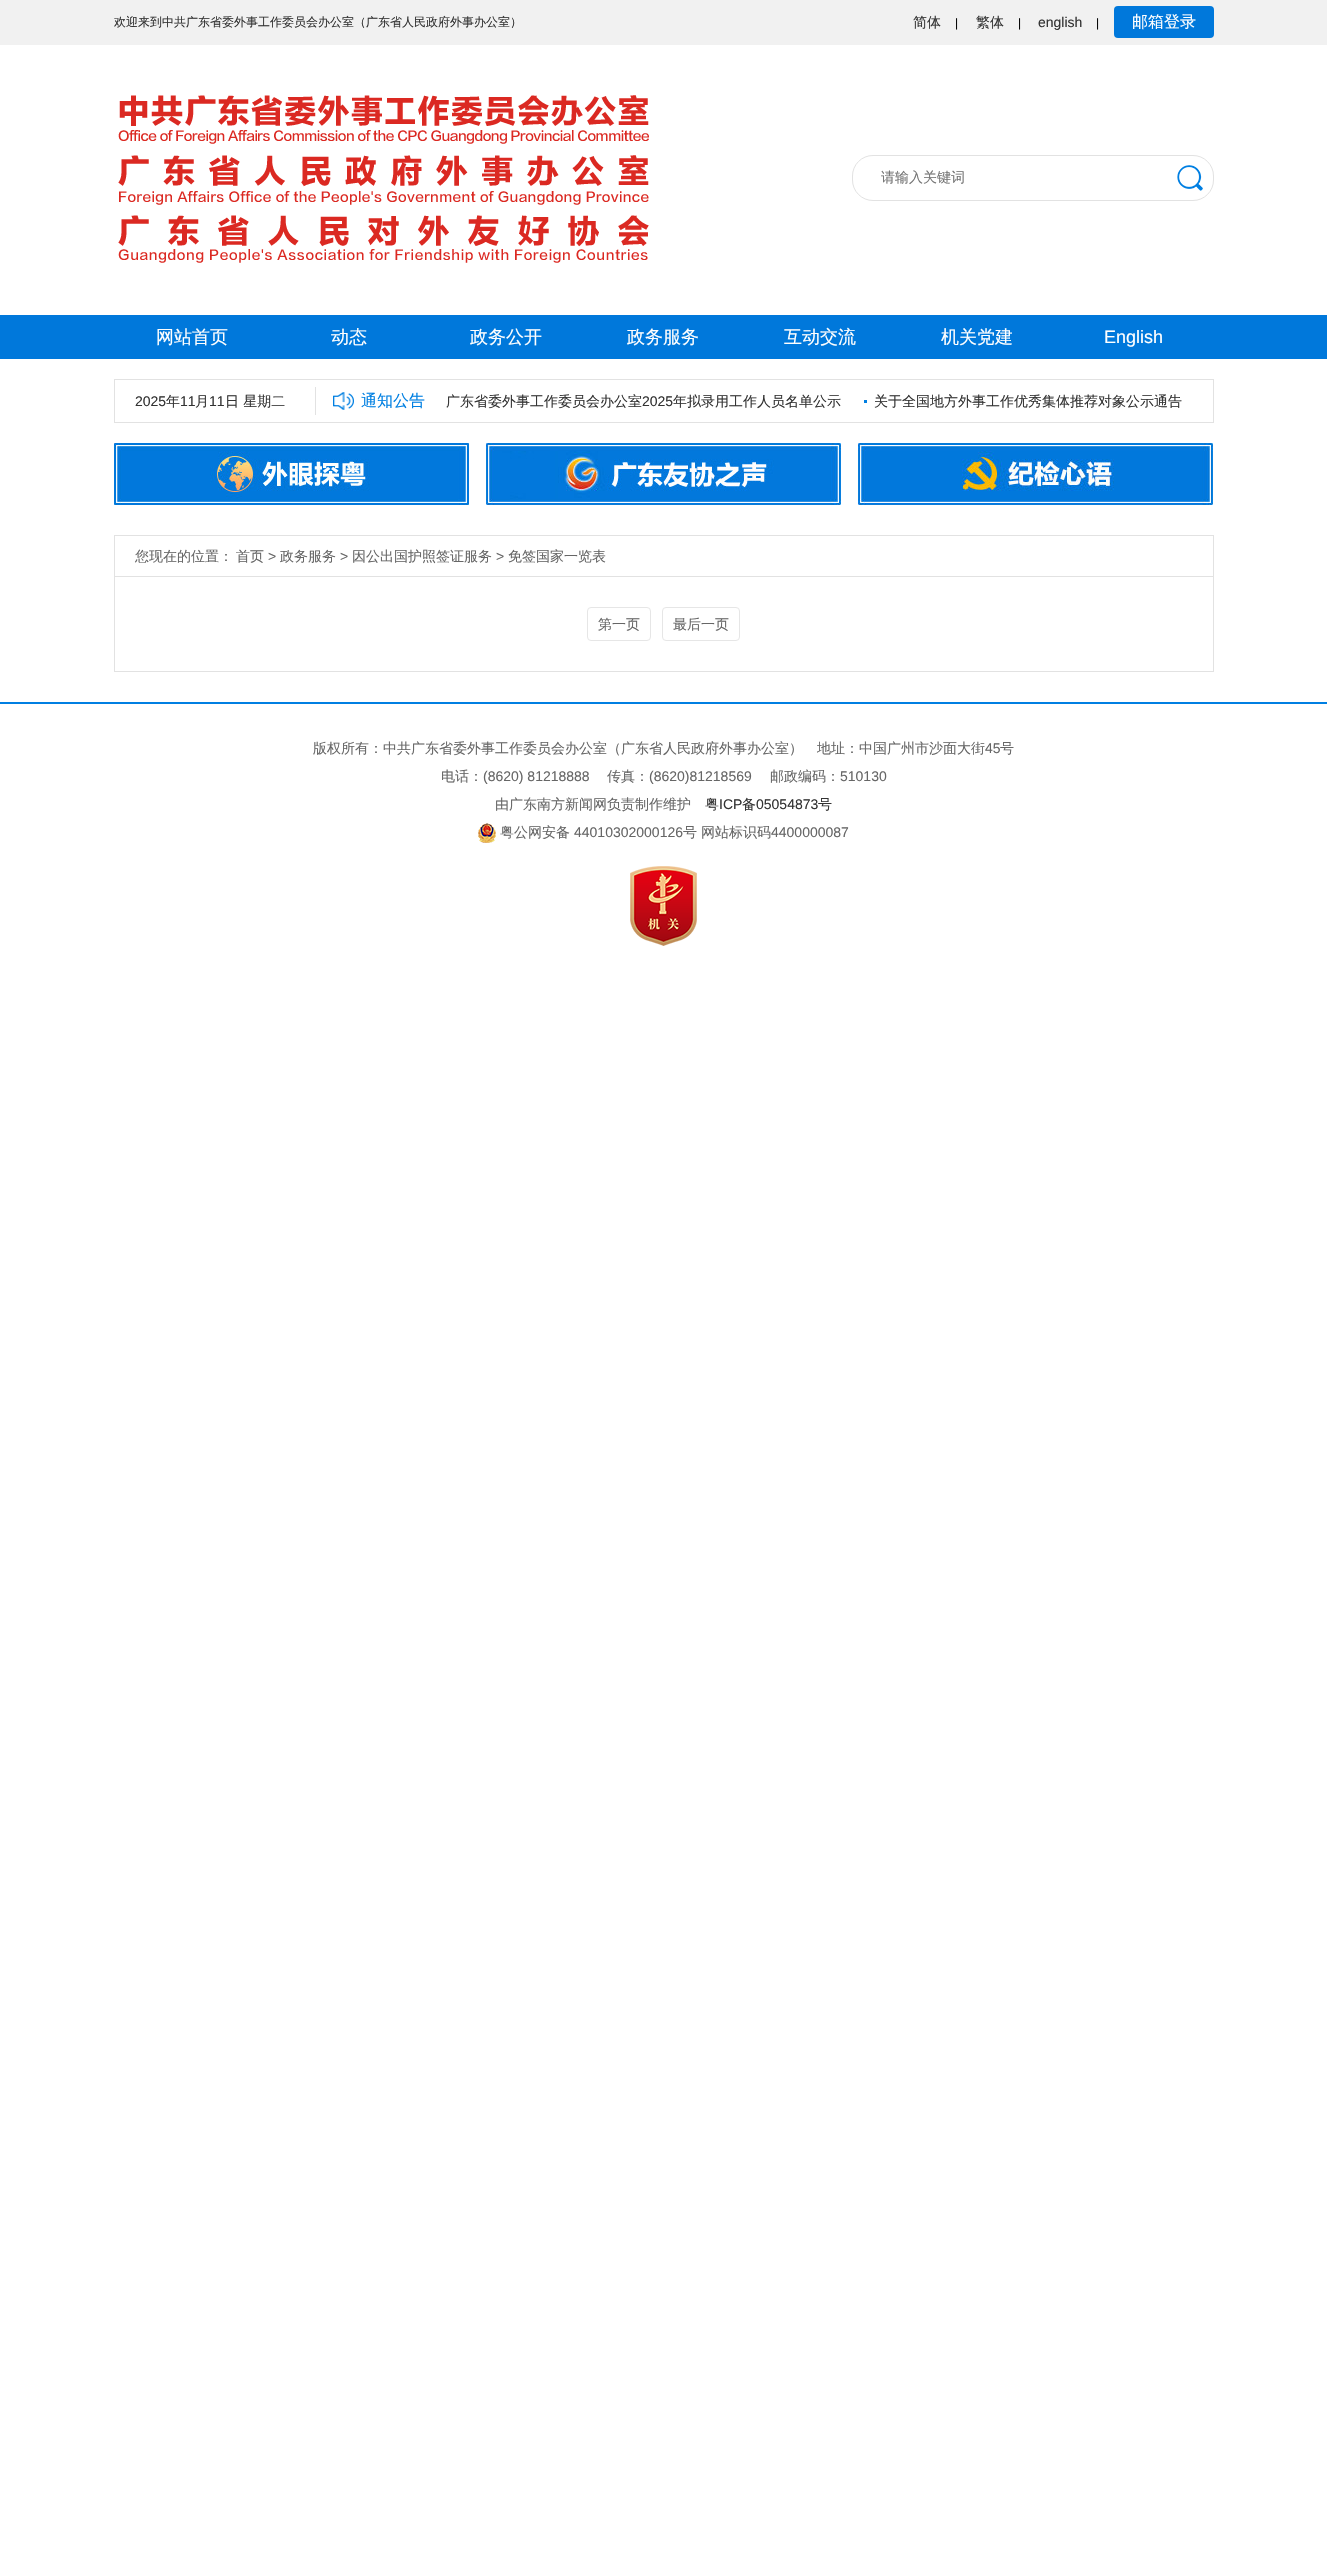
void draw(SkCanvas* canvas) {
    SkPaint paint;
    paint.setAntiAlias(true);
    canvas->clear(0xFFFFFFFF);
    paint.setColor(0xFFF1F1F1);
    canvas->drawRect(SkRect::MakeXYWH(0, 0, 1327, 45), paint);
    SkFont font1(fontMgr->matchFamilyStyle("WenQuanYi Zen Hei", SkFontStyle(500, SkFontStyle::kNormal_Width, SkFontStyle::kUpright_Slant)), 12);
    font1.setSubpixel(true);
    paint.setColor(0xFF333333);
    canvas->drawString("欢迎来到中共广东省委外事工作委员会办公室（广东省人民政府外事办公室）", 114, 26, font1, paint);
    SkFont font2(fontMgr->matchFamilyStyle("WenQuanYi Zen Hei", SkFontStyle(500, SkFontStyle::kNormal_Width, SkFontStyle::kUpright_Slant)), 14);
    font2.setSubpixel(true);
    canvas->drawString("简体", 913, 27, font2, paint);
    SkFont font3(fontMgr->matchFamilyStyle("Liberation Sans", SkFontStyle::Normal()), 12);
    font3.setSubpixel(true);
    paint.setColor(0xFF000000);
    canvas->drawString("|", 955, 27, font3, paint);
    paint.setColor(0xFF333333);
    canvas->drawString("繁体", 976, 27, font2, paint);
    paint.setColor(0xFF000000);
    canvas->drawString("|", 1018, 27, font3, paint);
    SkFont font4(fontMgr->matchFamilyStyle("Liberation Sans", SkFontStyle::Normal()), 14);
    font4.setSubpixel(true);
    paint.setColor(0xFF333333);
    canvas->drawString("english", 1038, 27, font4, paint);
    paint.setColor(0xFF000000);
    canvas->drawString("|", 1096, 27, font3, paint);
    paint.setColor(0xFF0078DB);
    canvas->drawRoundRect(SkRect::MakeXYWH(1114, 6, 100, 32), 4, 4, paint);
    SkFont font5(fontMgr->matchFamilyStyle("WenQuanYi Zen Hei", SkFontStyle(500, SkFontStyle::kNormal_Width, SkFontStyle::kUpright_Slant)), 16);
    font5.setSubpixel(true);
    paint.setColor(0xFFFFFFFF);
    canvas->drawString("邮箱登录", 1132, 27, font5, paint);
    canvas->drawImageRect(SkImages::DeferredFromEncodedData(SkData::MakeFromFileName("img1.png")), SkRect::MakeXYWH(118, 95, 531, 168), SkSamplingOptions());
    paint.setStyle(SkPaint::kStroke_Style);
    paint.setStrokeWidth(1);
    paint.setColor(0xFFE2E2E2);
    canvas->drawRoundRect(SkRect::MakeXYWH(852.5f, 155.5f, 361, 45), 20.5f, 20.5f, paint);
    paint.setStyle(SkPaint::kFill_Style);
    paint.setColor(0xFF757575);
    canvas->drawString("请输入关键词", 881, 182, font2, paint);
    canvas->drawImageRect(SkImages::DeferredFromEncodedData(SkData::MakeFromFileName("img2.png")), SkRect::MakeXYWH(1177, 165, 26, 26), SkSamplingOptions());
    paint.setColor(0xFF0078DB);
    canvas->drawRect(SkRect::MakeXYWH(0, 315, 1327, 44), paint);
    SkFont font6(fontMgr->matchFamilyStyle("WenQuanYi Zen Hei", SkFontStyle(500, SkFontStyle::kNormal_Width, SkFontStyle::kUpright_Slant)), 18);
    font6.setSubpixel(true);
    paint.setColor(0xFFFFFFFF);
    canvas->drawString("网站首页", 156, 343, font6, paint);
    canvas->drawString("动态", 331, 343, font6, paint);
    canvas->drawString("政务公开", 470, 343, font6, paint);
    canvas->drawString("政务服务", 627, 343, font6, paint);
    canvas->drawString("互动交流", 784, 343, font6, paint);
    canvas->drawString("机关党建", 941, 343, font6, paint);
    SkFont font7(fontMgr->matchFamilyStyle("Liberation Sans", SkFontStyle::Normal()), 18);
    font7.setSubpixel(true);
    canvas->drawString("English", 1104, 343, font7, paint);
    paint.setStyle(SkPaint::kStroke_Style);
    paint.setColor(0xFFE2E2E2);
    canvas->drawRect(SkRect::MakeXYWH(114.5f, 379.5f, 1099, 43), paint);
    paint.setStyle(SkPaint::kFill_Style);
    canvas->drawRect(SkRect::MakeXYWH(315, 387, 1, 28), paint);
    paint.setColor(0xFF333333);
    canvas->drawString("2025", 135, 406, font4, paint);
    canvas->drawString("年", 166, 406, font2, paint);
    canvas->drawString("11", 180, 406, font4, paint);
    canvas->drawString("月", 195, 406, font2, paint);
    canvas->drawString("11", 209, 406, font4, paint);
    canvas->drawString("日 星期二", 225, 406, font2, paint);
    canvas->drawImageRect(SkImages::DeferredFromEncodedData(SkData::MakeFromFileName("img3.png")), SkRect::MakeXYWH(333, 392, 21, 18), SkSamplingOptions());
    paint.setColor(0xFF007FE2);
    canvas->drawString("通知公告", 361, 406, font5, paint);
    paint.setColor(0xFF333333);
    canvas->drawString("广东省委外事工作委员会办公室", 446, 406, font2, paint);
    canvas->drawString("2025", 642, 406, font4, paint);
    canvas->drawString("年拟录用工作人员名单公示", 673, 406, font2, paint);
    paint.setColor(0xFF007FE2);
    canvas->drawRect(SkRect::MakeXYWH(864, 400, 3, 3), paint);
    paint.setColor(0xFF333333);
    canvas->drawString("关于全国地方外事工作优秀集体推荐对象公示通告", 874, 406, font2, paint);
    canvas->drawImageRect(SkImages::DeferredFromEncodedData(SkData::MakeFromFileName("img4.png")), SkRect::MakeXYWH(114, 443, 355, 62), SkSamplingOptions());
    canvas->drawImageRect(SkImages::DeferredFromEncodedData(SkData::MakeFromFileName("img5.png")), SkRect::MakeXYWH(486, 443, 355, 62), SkSamplingOptions());
    canvas->drawImageRect(SkImages::DeferredFromEncodedData(SkData::MakeFromFileName("img6.png")), SkRect::MakeXYWH(858, 443, 355, 62), SkSamplingOptions());
    paint.setStyle(SkPaint::kStroke_Style);
    paint.setColor(0xFFE2E2E2);
    canvas->drawRect(SkRect::MakeXYWH(114.5f, 535.5f, 1099, 136), paint);
    paint.setStyle(SkPaint::kFill_Style);
    canvas->drawRect(SkRect::MakeXYWH(115, 576, 1098, 1), paint);
    paint.setColor(0xFF666666);
    canvas->drawString("您现在的位置：", 135, 561, font2, paint);
    canvas->drawString("首页", 236, 561, font2, paint);
    canvas->drawString(">", 268, 561, font4, paint);
    canvas->drawString("政务服务", 280, 561, font2, paint);
    canvas->drawString(">", 340, 561, font4, paint);
    canvas->drawString("因公出国护照签证服务", 352, 561, font2, paint);
    canvas->drawString(">", 496, 561, font4, paint);
    canvas->drawString("免签国家一览表", 508, 561, font2, paint);
    paint.setStyle(SkPaint::kStroke_Style);
    paint.setColor(0xFFE6E6E6);
    canvas->drawRoundRect(SkRect::MakeXYWH(587.5f, 607.5f, 63, 33), 3.5f, 3.5f, paint);
    paint.setStyle(SkPaint::kFill_Style);
    paint.setColor(0xFF666666);
    canvas->drawString("第一页", 598, 629, font2, paint);
    paint.setStyle(SkPaint::kStroke_Style);
    paint.setColor(0xFFE6E6E6);
    canvas->drawRoundRect(SkRect::MakeXYWH(662.5f, 607.5f, 77, 33), 3.5f, 3.5f, paint);
    paint.setStyle(SkPaint::kFill_Style);
    paint.setColor(0xFF666666);
    canvas->drawString("最后一页", 673, 629, font2, paint);
    paint.setColor(0xFF007FE2);
    canvas->drawRect(SkRect::MakeXYWH(0, 702, 1327, 2), paint);
    paint.setColor(0xFF666666);
    canvas->drawString("版权所有：中共广东省委外事工作委员会办公室（广东省人民政府外事办公室）　地址：中国广州市沙面大街", 313, 753, font2, paint);
    canvas->drawString("45", 985, 753, font4, paint);
    canvas->drawString("号", 1000, 753, font2, paint);
    canvas->drawString("电话：", 441, 781, font2, paint);
    canvas->drawString("(8620) 81218888", 483, 781, font4, paint);
    canvas->drawString("传真：", 607, 781, font2, paint);
    canvas->drawString("(8620)81218569", 649, 781, font4, paint);
    canvas->drawString("邮政编码：", 770, 781, font2, paint);
    canvas->drawString("510130", 840, 781, font4, paint);
    canvas->drawString("由广东南方新闻网负责制作维护", 495, 809, font2, paint);
    paint.setColor(0xFF333333);
    canvas->drawString("粤", 705, 809, font2, paint);
    canvas->drawString("ICP", 719, 809, font4, paint);
    canvas->drawString("备", 742, 809, font2, paint);
    canvas->drawString("05054873", 756, 809, font4, paint);
    canvas->drawString("号", 818, 809, font2, paint);
    canvas->drawImageRect(SkImages::DeferredFromEncodedData(SkData::MakeFromFileName("img7.png")), SkRect::MakeXYWH(478, 823, 18, 20), SkSamplingOptions());
    paint.setColor(0xFF666666);
    canvas->drawString("粤公网安备", 500, 837, font2, paint);
    canvas->drawString("44010302000126", 574, 837, font4, paint);
    canvas->drawString("号", 683, 837, font2, paint);
    canvas->drawString("网站标识码", 701, 837, font2, paint);
    canvas->drawString("4400000087", 771, 837, font4, paint);
    canvas->drawImageRect(SkImages::DeferredFromEncodedData(SkData::MakeFromFileName("img8.png")), SkRect::MakeXYWH(630, 866, 67, 80), SkSamplingOptions());
}
